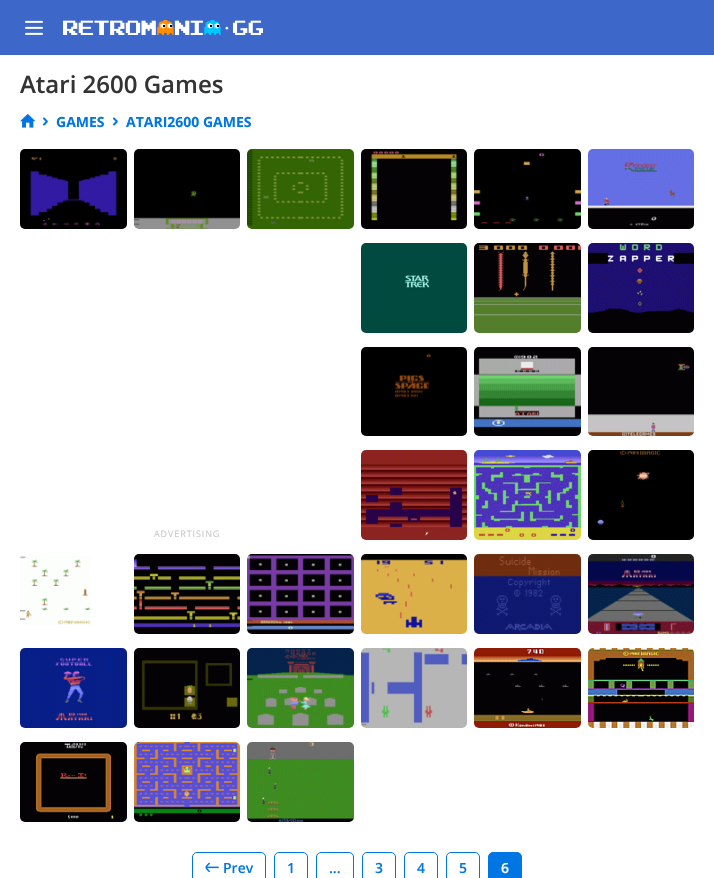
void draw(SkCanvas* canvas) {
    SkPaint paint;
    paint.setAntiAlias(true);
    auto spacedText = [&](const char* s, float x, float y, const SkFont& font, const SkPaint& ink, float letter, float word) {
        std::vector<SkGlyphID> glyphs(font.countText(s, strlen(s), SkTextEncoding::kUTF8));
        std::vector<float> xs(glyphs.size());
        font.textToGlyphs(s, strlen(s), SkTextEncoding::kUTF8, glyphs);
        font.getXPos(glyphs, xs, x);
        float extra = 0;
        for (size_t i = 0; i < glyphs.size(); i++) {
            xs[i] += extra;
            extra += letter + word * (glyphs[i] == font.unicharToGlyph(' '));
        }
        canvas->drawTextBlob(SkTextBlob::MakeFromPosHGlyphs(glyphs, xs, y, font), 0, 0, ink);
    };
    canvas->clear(0xFFFFFFFF);
    paint.setColor(0xFF3D67C8);
    canvas->drawRect(SkRect::MakeXYWH(0, 0, 714, 55), paint);
    canvas->drawImageRect(SkImages::DeferredFromEncodedData(SkData::MakeFromFileName("img1.png")), SkRect::MakeXYWH(25, 20, 18, 15), SkSamplingOptions());
    canvas->drawImageRect(SkImages::DeferredFromEncodedData(SkData::MakeFromFileName("img2.png")), SkRect::MakeXYWH(63, 20, 200, 15), SkSamplingOptions());
    SkFont font1(fontMgr->matchFamilyStyle("Open Sans", SkFontStyle(600, SkFontStyle::kNormal_Width, SkFontStyle::kUpright_Slant)), 24);
    font1.setSubpixel(true);
    paint.setColor(0xFF343434);
    canvas->drawString("Atari 2600 Games", 20, 93, font1, paint);
    canvas->drawImageRect(SkImages::DeferredFromEncodedData(SkData::MakeFromFileName("img3.png")), SkRect::MakeXYWH(20, 114, 16, 14), SkSamplingOptions());
    canvas->drawImageRect(SkImages::DeferredFromEncodedData(SkData::MakeFromFileName("img4.png")), SkRect::MakeXYWH(43, 117, 5, 9), SkSamplingOptions());
    SkFont font2(fontMgr->matchFamilyStyle("Open Sans", SkFontStyle::Bold()), 14);
    font2.setSubpixel(true);
    paint.setColor(0xFF0076E3);
    canvas->drawString("GAMES", 56, 127, font2, paint);
    canvas->drawImageRect(SkImages::DeferredFromEncodedData(SkData::MakeFromFileName("img4.png")), SkRect::MakeXYWH(113, 117, 5, 9), SkSamplingOptions());
    canvas->drawString("ATARI2600 GAMES", 126, 127, font2, paint);
    canvas->drawImageRect(SkImages::DeferredFromEncodedData(SkData::MakeFromFileName("img5.png")), SkRect::MakeXYWH(20, 149, 107, 80), SkSamplingOptions());
    canvas->drawImageRect(SkImages::DeferredFromEncodedData(SkData::MakeFromFileName("img6.png")), SkRect::MakeXYWH(134, 149, 106, 80), SkSamplingOptions());
    canvas->drawImageRect(SkImages::DeferredFromEncodedData(SkData::MakeFromFileName("img7.png")), SkRect::MakeXYWH(247, 149, 107, 80), SkSamplingOptions());
    canvas->drawImageRect(SkImages::DeferredFromEncodedData(SkData::MakeFromFileName("img8.png")), SkRect::MakeXYWH(361, 149, 106, 80), SkSamplingOptions());
    canvas->drawImageRect(SkImages::DeferredFromEncodedData(SkData::MakeFromFileName("img9.png")), SkRect::MakeXYWH(474, 149, 107, 80), SkSamplingOptions());
    canvas->drawImageRect(SkImages::DeferredFromEncodedData(SkData::MakeFromFileName("img10.png")), SkRect::MakeXYWH(588, 149, 106, 80), SkSamplingOptions());
    canvas->drawImageRect(SkImages::DeferredFromEncodedData(SkData::MakeFromFileName("img11.png")), SkRect::MakeXYWH(361, 243, 106, 90), SkSamplingOptions());
    canvas->drawImageRect(SkImages::DeferredFromEncodedData(SkData::MakeFromFileName("img12.png")), SkRect::MakeXYWH(474, 243, 107, 90), SkSamplingOptions());
    canvas->drawImageRect(SkImages::DeferredFromEncodedData(SkData::MakeFromFileName("img13.png")), SkRect::MakeXYWH(588, 243, 106, 90), SkSamplingOptions());
    canvas->drawImageRect(SkImages::DeferredFromEncodedData(SkData::MakeFromFileName("img14.png")), SkRect::MakeXYWH(361, 347, 106, 89), SkSamplingOptions());
    canvas->drawImageRect(SkImages::DeferredFromEncodedData(SkData::MakeFromFileName("img15.png")), SkRect::MakeXYWH(474, 347, 107, 89), SkSamplingOptions());
    canvas->drawImageRect(SkImages::DeferredFromEncodedData(SkData::MakeFromFileName("img16.png")), SkRect::MakeXYWH(588, 347, 106, 89), SkSamplingOptions());
    SkFont font3(fontMgr->matchFamilyStyle("Open Sans", SkFontStyle::Normal()), 9);
    font3.setSubpixel(true);
    paint.setColor(0xFFC9C9C9);
    spacedText("ADVERTISING", 154, 537, font3, paint, 0.9f, 0);
    canvas->drawImageRect(SkImages::DeferredFromEncodedData(SkData::MakeFromFileName("img17.png")), SkRect::MakeXYWH(361, 450, 106, 90), SkSamplingOptions());
    canvas->drawImageRect(SkImages::DeferredFromEncodedData(SkData::MakeFromFileName("img18.png")), SkRect::MakeXYWH(474, 450, 107, 90), SkSamplingOptions());
    canvas->drawImageRect(SkImages::DeferredFromEncodedData(SkData::MakeFromFileName("img19.png")), SkRect::MakeXYWH(588, 450, 106, 90), SkSamplingOptions());
    canvas->drawImageRect(SkImages::DeferredFromEncodedData(SkData::MakeFromFileName("img20.png")), SkRect::MakeXYWH(20, 556, 71, 69), SkSamplingOptions());
    canvas->drawImageRect(SkImages::DeferredFromEncodedData(SkData::MakeFromFileName("img21.png")), SkRect::MakeXYWH(134, 554, 106, 80), SkSamplingOptions());
    canvas->drawImageRect(SkImages::DeferredFromEncodedData(SkData::MakeFromFileName("img22.png")), SkRect::MakeXYWH(247, 554, 107, 80), SkSamplingOptions());
    canvas->drawImageRect(SkImages::DeferredFromEncodedData(SkData::MakeFromFileName("img23.png")), SkRect::MakeXYWH(361, 554, 106, 80), SkSamplingOptions());
    canvas->drawImageRect(SkImages::DeferredFromEncodedData(SkData::MakeFromFileName("img24.png")), SkRect::MakeXYWH(474, 554, 107, 80), SkSamplingOptions());
    canvas->drawImageRect(SkImages::DeferredFromEncodedData(SkData::MakeFromFileName("img25.png")), SkRect::MakeXYWH(588, 554, 106, 80), SkSamplingOptions());
    canvas->drawImageRect(SkImages::DeferredFromEncodedData(SkData::MakeFromFileName("img26.png")), SkRect::MakeXYWH(20, 648, 107, 80), SkSamplingOptions());
    canvas->drawImageRect(SkImages::DeferredFromEncodedData(SkData::MakeFromFileName("img27.png")), SkRect::MakeXYWH(134, 648, 106, 80), SkSamplingOptions());
    canvas->drawImageRect(SkImages::DeferredFromEncodedData(SkData::MakeFromFileName("img28.png")), SkRect::MakeXYWH(247, 648, 107, 80), SkSamplingOptions());
    canvas->drawImageRect(SkImages::DeferredFromEncodedData(SkData::MakeFromFileName("img29.png")), SkRect::MakeXYWH(361, 648, 106, 80), SkSamplingOptions());
    canvas->drawImageRect(SkImages::DeferredFromEncodedData(SkData::MakeFromFileName("img30.png")), SkRect::MakeXYWH(474, 648, 107, 80), SkSamplingOptions());
    canvas->drawImageRect(SkImages::DeferredFromEncodedData(SkData::MakeFromFileName("img31.png")), SkRect::MakeXYWH(588, 648, 106, 80), SkSamplingOptions());
    canvas->drawImageRect(SkImages::DeferredFromEncodedData(SkData::MakeFromFileName("img32.png")), SkRect::MakeXYWH(20, 742, 107, 80), SkSamplingOptions());
    canvas->drawImageRect(SkImages::DeferredFromEncodedData(SkData::MakeFromFileName("img33.png")), SkRect::MakeXYWH(134, 742, 106, 80), SkSamplingOptions());
    canvas->drawImageRect(SkImages::DeferredFromEncodedData(SkData::MakeFromFileName("img34.png")), SkRect::MakeXYWH(247, 742, 107, 80), SkSamplingOptions());
    paint.setStyle(SkPaint::kStroke_Style);
    paint.setStrokeWidth(1);
    paint.setColor(0xFF0076E3);
    canvas->drawRoundRect(SkRect::MakeXYWH(192.5f, 852.5f, 73, 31), 4.5f, 4.5f, paint);
    canvas->drawImageRect(SkImages::DeferredFromEncodedData(SkData::MakeFromFileName("img35.png")), SkRect::MakeXYWH(205, 862, 14, 11), SkSamplingOptions());
    SkFont font4(fontMgr->matchFamilyStyle("Open Sans", SkFontStyle(600, SkFontStyle::kNormal_Width, SkFontStyle::kUpright_Slant)), 14);
    font4.setSubpixel(true);
    paint.setStyle(SkPaint::kFill_Style);
    canvas->drawString("Prev", 223, 873, font4, paint);
    paint.setStyle(SkPaint::kStroke_Style);
    canvas->drawRoundRect(SkRect::MakeXYWH(274.5f, 852.5f, 33, 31), 4.5f, 4.5f, paint);
    paint.setStyle(SkPaint::kFill_Style);
    canvas->drawString("1", 287, 873, font4, paint);
    paint.setStyle(SkPaint::kStroke_Style);
    canvas->drawRoundRect(SkRect::MakeXYWH(316.5f, 852.5f, 37, 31), 4.5f, 4.5f, paint);
    paint.setStyle(SkPaint::kFill_Style);
    canvas->drawString("...", 329, 873, font4, paint);
    paint.setStyle(SkPaint::kStroke_Style);
    canvas->drawRoundRect(SkRect::MakeXYWH(362.5f, 852.5f, 33, 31), 4.5f, 4.5f, paint);
    paint.setStyle(SkPaint::kFill_Style);
    canvas->drawString("3", 375, 873, font4, paint);
    paint.setStyle(SkPaint::kStroke_Style);
    canvas->drawRoundRect(SkRect::MakeXYWH(404.5f, 852.5f, 33, 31), 4.5f, 4.5f, paint);
    paint.setStyle(SkPaint::kFill_Style);
    canvas->drawString("4", 417, 873, font4, paint);
    paint.setStyle(SkPaint::kStroke_Style);
    canvas->drawRoundRect(SkRect::MakeXYWH(446.5f, 852.5f, 33, 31), 4.5f, 4.5f, paint);
    paint.setStyle(SkPaint::kFill_Style);
    canvas->drawString("5", 459, 873, font4, paint);
    canvas->drawRoundRect(SkRect::MakeXYWH(488.5f, 852.5f, 33, 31), 4.5f, 4.5f, paint);
    paint.setStyle(SkPaint::kStroke_Style);
    canvas->drawRoundRect(SkRect::MakeXYWH(488.5f, 852.5f, 33, 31), 4.5f, 4.5f, paint);
    paint.setStyle(SkPaint::kFill_Style);
    paint.setColor(0xFFFFFFFF);
    canvas->drawString("6", 501, 873, font4, paint);
}
